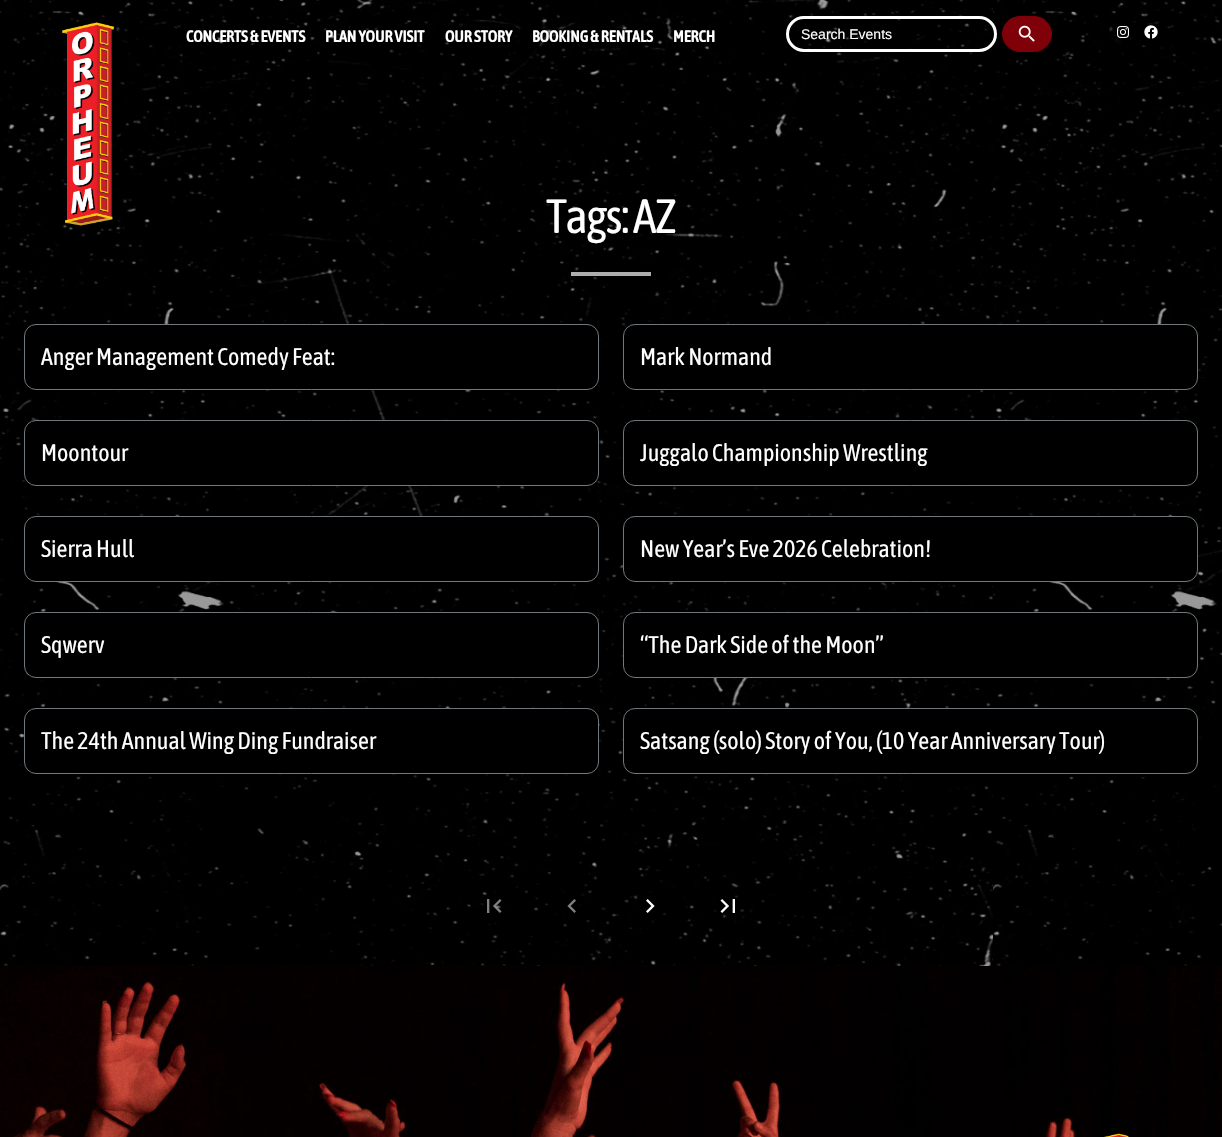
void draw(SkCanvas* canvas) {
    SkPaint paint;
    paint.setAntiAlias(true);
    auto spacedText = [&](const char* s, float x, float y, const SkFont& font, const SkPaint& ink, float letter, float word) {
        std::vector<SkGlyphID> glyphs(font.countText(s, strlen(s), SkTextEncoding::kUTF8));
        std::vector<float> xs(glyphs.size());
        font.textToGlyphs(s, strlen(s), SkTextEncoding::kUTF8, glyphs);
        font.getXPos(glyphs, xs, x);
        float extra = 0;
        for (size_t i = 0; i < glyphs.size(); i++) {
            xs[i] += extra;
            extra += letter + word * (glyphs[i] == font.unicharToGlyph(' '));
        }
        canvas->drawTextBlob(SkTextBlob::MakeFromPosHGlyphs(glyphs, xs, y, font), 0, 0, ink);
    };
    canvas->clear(0xFFFFFFFF);
    canvas->drawImageRect(SkImages::DeferredFromEncodedData(SkData::MakeFromFileName("img1.png")), SkRect::MakeXYWH(0, 0, 1222, 966), SkSamplingOptions());
    canvas->drawImageRect(SkImages::DeferredFromEncodedData(SkData::MakeFromFileName("img2.png")), SkRect::MakeXYWH(62, 22, 53, 204), SkSamplingOptions());
    SkFont font1(fontMgr->matchFamilyStyle("Asap Condensed", SkFontStyle::Bold()), 16);
    font1.setSubpixel(true);
    paint.setColor(0xFFFFFFFF);
    canvas->drawString("CONCERTS & EVENTS", 186, 42, font1, paint);
    canvas->drawString("PLAN YOUR VISIT", 325, 42, font1, paint);
    canvas->drawString("OUR STORY", 445, 42, font1, paint);
    canvas->drawString("BOOKING & RENTALS", 532, 42, font1, paint);
    canvas->drawString("MERCH", 673, 42, font1, paint);
    paint.setStyle(SkPaint::kStroke_Style);
    paint.setStrokeWidth(3);
    canvas->drawRoundRect(SkRect::MakeXYWH(787.5f, 17.5f, 208, 33), 16.5f, 16.5f, paint);
    SkFont font2(fontMgr->matchFamilyStyle("Liberation Sans", SkFontStyle::Normal()), 14);
    font2.setSubpixel(true);
    paint.setStyle(SkPaint::kFill_Style);
    canvas->drawString("Search Events", 801, 39, font2, paint);
    paint.setColor(0xFF7F0009);
    canvas->drawRoundRect(SkRect::MakeXYWH(1002.5f, 16.5f, 49, 35), 17.5f, 17.5f, paint);
    paint.setStyle(SkPaint::kStroke_Style);
    paint.setStrokeWidth(1);
    canvas->drawRoundRect(SkRect::MakeXYWH(1002.5f, 16.5f, 49, 35), 17.5f, 17.5f, paint);
    canvas->drawImageRect(SkImages::DeferredFromEncodedData(SkData::MakeFromFileName("img3.png")), SkRect::MakeXYWH(1018, 25, 17, 17), SkSamplingOptions());
    canvas->drawImageRect(SkImages::DeferredFromEncodedData(SkData::MakeFromFileName("img4.png")), SkRect::MakeXYWH(1117, 26, 12, 12), SkSamplingOptions());
    canvas->drawImageRect(SkImages::DeferredFromEncodedData(SkData::MakeFromFileName("img5.png")), SkRect::MakeXYWH(1144, 25, 14, 14), SkSamplingOptions());
    SkFont font3(fontMgr->matchFamilyStyle("Asap Condensed", SkFontStyle::Normal()), 48);
    font3.setSubpixel(true);
    paint.setStyle(SkPaint::kFill_Style);
    paint.setColor(0xFFFFFFFF);
    spacedText("Tags: AZ", 546, 233, font3, paint, -1.5f, 0);
    paint.setColor(0xFFADADAD);
    canvas->drawRect(SkRect::MakeXYWH(571, 272, 80, 4), paint);
    paint.setColor(0xFF000000);
    canvas->drawRoundRect(SkRect::MakeXYWH(24.5f, 324.5f, 574, 65), 11.5f, 11.5f, paint);
    paint.setStyle(SkPaint::kStroke_Style);
    paint.setColor(0xFF70787D);
    canvas->drawRoundRect(SkRect::MakeXYWH(24.5f, 324.5f, 574, 65), 11.5f, 11.5f, paint);
    SkFont font4(fontMgr->matchFamilyStyle("Asap Condensed", SkFontStyle::Normal()), 24);
    font4.setSubpixel(true);
    paint.setStyle(SkPaint::kFill_Style);
    paint.setColor(0xFFFFFFFF);
    canvas->drawString("Anger Management Comedy Feat:", 41, 365, font4, paint);
    paint.setColor(0xFF000000);
    canvas->drawRoundRect(SkRect::MakeXYWH(623.5f, 324.5f, 574, 65), 11.5f, 11.5f, paint);
    paint.setStyle(SkPaint::kStroke_Style);
    paint.setColor(0xFF70787D);
    canvas->drawRoundRect(SkRect::MakeXYWH(623.5f, 324.5f, 574, 65), 11.5f, 11.5f, paint);
    paint.setStyle(SkPaint::kFill_Style);
    paint.setColor(0xFFFFFFFF);
    canvas->drawString("Mark Normand", 640, 365, font4, paint);
    paint.setColor(0xFF000000);
    canvas->drawRoundRect(SkRect::MakeXYWH(24.5f, 420.5f, 574, 65), 11.5f, 11.5f, paint);
    paint.setStyle(SkPaint::kStroke_Style);
    paint.setColor(0xFF70787D);
    canvas->drawRoundRect(SkRect::MakeXYWH(24.5f, 420.5f, 574, 65), 11.5f, 11.5f, paint);
    paint.setStyle(SkPaint::kFill_Style);
    paint.setColor(0xFFFFFFFF);
    canvas->drawString("Moontour", 41, 461, font4, paint);
    paint.setColor(0xFF000000);
    canvas->drawRoundRect(SkRect::MakeXYWH(623.5f, 420.5f, 574, 65), 11.5f, 11.5f, paint);
    paint.setStyle(SkPaint::kStroke_Style);
    paint.setColor(0xFF70787D);
    canvas->drawRoundRect(SkRect::MakeXYWH(623.5f, 420.5f, 574, 65), 11.5f, 11.5f, paint);
    paint.setStyle(SkPaint::kFill_Style);
    paint.setColor(0xFFFFFFFF);
    canvas->drawString("Juggalo Championship Wrestling", 640, 461, font4, paint);
    paint.setColor(0xFF000000);
    canvas->drawRoundRect(SkRect::MakeXYWH(24.5f, 516.5f, 574, 65), 11.5f, 11.5f, paint);
    paint.setStyle(SkPaint::kStroke_Style);
    paint.setColor(0xFF70787D);
    canvas->drawRoundRect(SkRect::MakeXYWH(24.5f, 516.5f, 574, 65), 11.5f, 11.5f, paint);
    paint.setStyle(SkPaint::kFill_Style);
    paint.setColor(0xFFFFFFFF);
    canvas->drawString("Sierra Hull", 41, 557, font4, paint);
    paint.setColor(0xFF000000);
    canvas->drawRoundRect(SkRect::MakeXYWH(623.5f, 516.5f, 574, 65), 11.5f, 11.5f, paint);
    paint.setStyle(SkPaint::kStroke_Style);
    paint.setColor(0xFF70787D);
    canvas->drawRoundRect(SkRect::MakeXYWH(623.5f, 516.5f, 574, 65), 11.5f, 11.5f, paint);
    paint.setStyle(SkPaint::kFill_Style);
    paint.setColor(0xFFFFFFFF);
    canvas->drawString("New Year’s Eve 2026 Celebration!", 640, 557, font4, paint);
    paint.setColor(0xFF000000);
    canvas->drawRoundRect(SkRect::MakeXYWH(24.5f, 612.5f, 574, 65), 11.5f, 11.5f, paint);
    paint.setStyle(SkPaint::kStroke_Style);
    paint.setColor(0xFF70787D);
    canvas->drawRoundRect(SkRect::MakeXYWH(24.5f, 612.5f, 574, 65), 11.5f, 11.5f, paint);
    paint.setStyle(SkPaint::kFill_Style);
    paint.setColor(0xFFFFFFFF);
    canvas->drawString("Sqwerv", 41, 653, font4, paint);
    paint.setColor(0xFF000000);
    canvas->drawRoundRect(SkRect::MakeXYWH(623.5f, 612.5f, 574, 65), 11.5f, 11.5f, paint);
    paint.setStyle(SkPaint::kStroke_Style);
    paint.setColor(0xFF70787D);
    canvas->drawRoundRect(SkRect::MakeXYWH(623.5f, 612.5f, 574, 65), 11.5f, 11.5f, paint);
    paint.setStyle(SkPaint::kFill_Style);
    paint.setColor(0xFFFFFFFF);
    canvas->drawString("“The Dark Side of the Moon”", 640, 653, font4, paint);
    paint.setColor(0xFF000000);
    canvas->drawRoundRect(SkRect::MakeXYWH(24.5f, 708.5f, 574, 65), 11.5f, 11.5f, paint);
    paint.setStyle(SkPaint::kStroke_Style);
    paint.setColor(0xFF70787D);
    canvas->drawRoundRect(SkRect::MakeXYWH(24.5f, 708.5f, 574, 65), 11.5f, 11.5f, paint);
    paint.setStyle(SkPaint::kFill_Style);
    paint.setColor(0xFFFFFFFF);
    canvas->drawString("The 24th Annual Wing Ding Fundraiser", 41, 749, font4, paint);
    paint.setColor(0xFF000000);
    canvas->drawRoundRect(SkRect::MakeXYWH(623.5f, 708.5f, 574, 65), 11.5f, 11.5f, paint);
    paint.setStyle(SkPaint::kStroke_Style);
    paint.setColor(0xFF70787D);
    canvas->drawRoundRect(SkRect::MakeXYWH(623.5f, 708.5f, 574, 65), 11.5f, 11.5f, paint);
    paint.setStyle(SkPaint::kFill_Style);
    paint.setColor(0xFFFFFFFF);
    canvas->drawString("Satsang (solo) Story of You, (10 Year Anniversary Tour)", 640, 749, font4, paint);
    canvas->drawImageRect(SkImages::DeferredFromEncodedData(SkData::MakeFromFileName("img6.png")), SkRect::MakeXYWH(487, 899, 15, 14), SkSamplingOptions());
    canvas->drawImageRect(SkImages::DeferredFromEncodedData(SkData::MakeFromFileName("img7.png")), SkRect::MakeXYWH(567, 899, 9, 14), SkSamplingOptions());
    canvas->drawImageRect(SkImages::DeferredFromEncodedData(SkData::MakeFromFileName("img8.png")), SkRect::MakeXYWH(646, 899, 9, 14), SkSamplingOptions());
    canvas->drawImageRect(SkImages::DeferredFromEncodedData(SkData::MakeFromFileName("img9.png")), SkRect::MakeXYWH(720, 899, 15, 14), SkSamplingOptions());
    canvas->drawImageRect(SkImages::DeferredFromEncodedData(SkData::MakeFromFileName("img10.png")), SkRect::MakeXYWH(0, 966, 1222, 171), SkSamplingOptions());
    canvas->drawImageRect(SkImages::DeferredFromEncodedData(SkData::MakeFromFileName("img11.png")), SkRect::MakeXYWH(1104, 1133, 25, 4), SkSamplingOptions());
}
